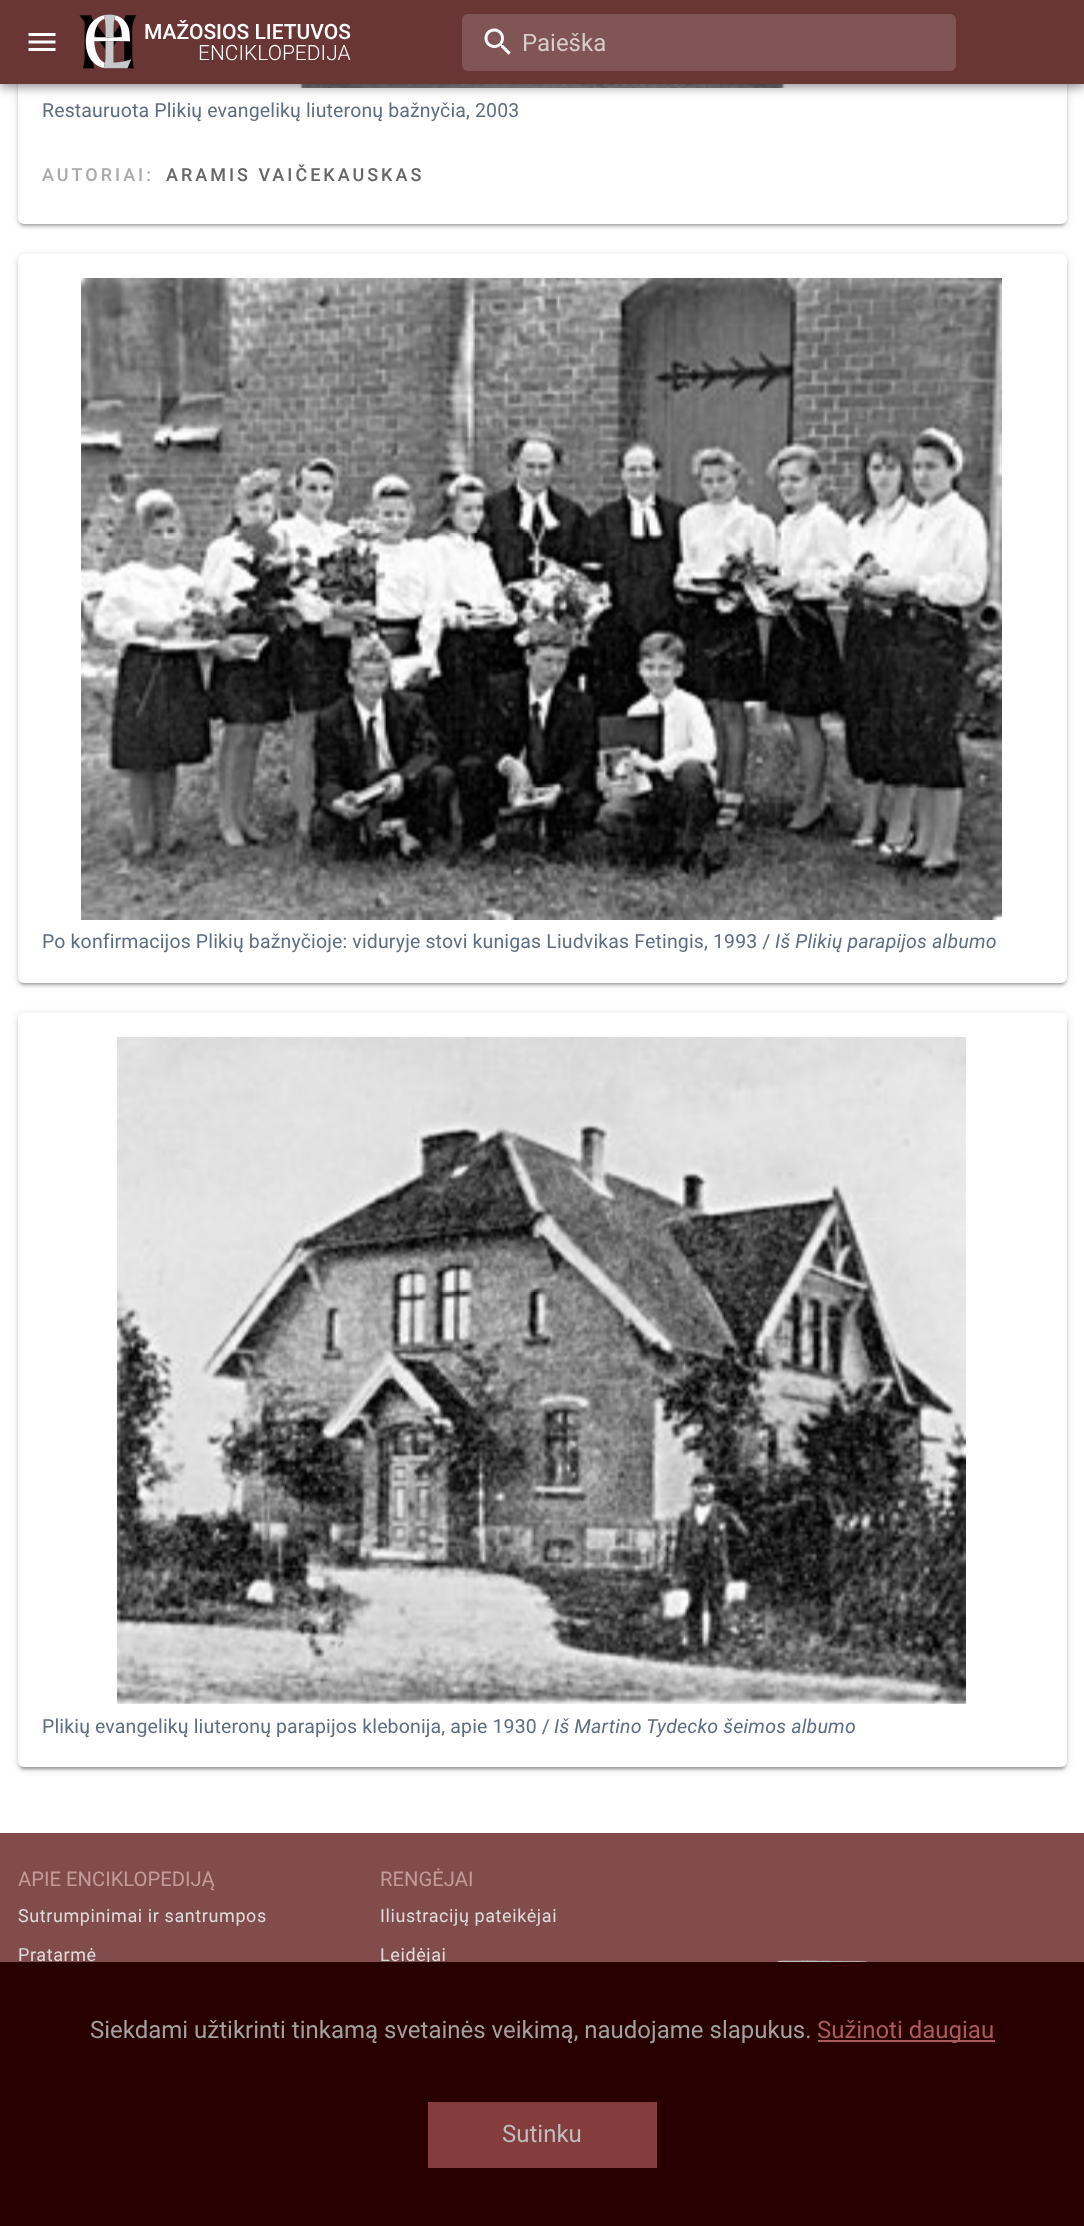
(async () => {
    const canvas = document.querySelector("canvas");
    canvas.width = 1084;
    canvas.height = 2226;
    const context = canvas.getContext("2d");
    context.miterLimit = 4;
    context.fontKerning = "normal";
    function write(s, x, y, font, color) {
        context.font = font;
        context.fillStyle = color;
        context.fillText(s, x, y);
    }
    function block(x, y, w, h, color) {
        context.fillStyle = color;
        context.fillRect(x, y, w, h);
    }
    function card(x, y, w, h, r, color) {
        context.fillStyle = color;
        context.beginPath();
        context.roundRect(x, y, w, h, r);
        context.fill();
    }
    async function photo(src, x, y, w, h) {
        const img = new Image();
        img.src = src;
        await img.decode();
        context.drawImage(img, x, y, w, h);
    }

    block(0, 0, 1084, 2226, "rgb(255, 255, 255)");
    context.fillStyle = "rgba(0, 0, 0, 0.12)";
    context.filter = "blur(4px)";
    context.beginPath();
    context.roundRect(18, -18, 1049, 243, 6);
    context.fill();
    context.filter = "none";
    context.fillStyle = "rgba(0, 0, 0, 0.14)";
    context.filter = "blur(1.5px)";
    context.beginPath();
    context.roundRect(18, -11, 1049, 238, 6);
    context.fill();
    context.filter = "none";
    context.fillStyle = "rgba(0, 0, 0, 0.2)";
    context.filter = "blur(1px)";
    context.beginPath();
    context.roundRect(21, -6, 1043, 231, 3);
    context.fill();
    context.filter = "none";
    card(18, -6, 1049, 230, 6, "rgb(255, 255, 255)");
    await photo("media/4.png", 300, 84, 485, 4);
    context.fillStyle = "rgba(0, 0, 0, 0.12)";
    context.filter = "blur(7.5px)";
    context.beginPath();
    context.rect(0, 2, 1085, 84);
    context.fill();
    context.filter = "none";
    context.fillStyle = "rgba(0, 0, 0, 0.14)";
    context.filter = "blur(4px)";
    context.beginPath();
    context.rect(0, 6, 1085, 84);
    context.fill();
    context.filter = "none";
    context.fillStyle = "rgba(0, 0, 0, 0.2)";
    context.filter = "blur(3px)";
    context.beginPath();
    context.rect(2, 5, 1081, 81);
    context.fill();
    context.filter = "none";
    block(0, 0, 1084, 84, "rgb(105, 53, 53)");
    await photo("media/1.png", 28, 33, 28, 18);
    await photo("media/2.png", 79, 14, 58, 55);
    write("MAŽOSIOS LIETUVOS", 144, 39, "500 21px Roboto", "rgb(255, 255, 255)");
    write("ENCIKLOPEDIJA", 198, 60, "300 21px Roboto", "rgb(255, 255, 255)");
    card(462, 14, 494, 57, 6, "rgb(129, 85, 85)");
    await photo("media/3.png", 484, 28, 27, 27);
    write("Paieška", 522, 51, "24px Roboto", "rgb(217, 204, 204)");
    context.letterSpacing = "0.15px";
    write("Restauruota Plikių evangelikų liuteronų bažnyčia, 2003", 42, 117, "19.5px Roboto", "rgb(95, 109, 128)");
    context.letterSpacing = "3px";
    write("AUTORIAI:", 42, 181, "500 18px Roboto", "rgb(170, 170, 170)");
    write("ARAMIS VAIČEKAUSKAS", 166, 181, "500 18px Roboto", "rgb(102, 102, 102)");
    context.fillStyle = "rgba(0, 0, 0, 0.12)";
    context.filter = "blur(4px)";
    context.beginPath();
    context.roundRect(18, 255, 1049, 729, 6);
    context.fill();
    context.filter = "none";
    context.fillStyle = "rgba(0, 0, 0, 0.14)";
    context.filter = "blur(1.5px)";
    context.beginPath();
    context.roundRect(18, 257, 1049, 729, 6);
    context.fill();
    context.filter = "none";
    context.fillStyle = "rgba(0, 0, 0, 0.2)";
    context.filter = "blur(1px)";
    context.beginPath();
    context.roundRect(21, 261, 1043, 723, 3);
    context.fill();
    context.filter = "none";
    card(18, 254, 1049, 729, 6, "rgb(255, 255, 255)");
    await photo("media/5.png", 81, 278, 921, 642);
    context.letterSpacing = "0.15px";
    write("Po konfirmacijos Plikių bažnyčioje: viduryje stovi kunigas Liudvikas Fetingis, 1993 /", 42, 948, "19.5px Roboto", "rgb(95, 109, 128)");
    write("Iš Plikių parapijos albumo", 775, 948, "italic 19.5px Roboto", "rgb(95, 109, 128)");
    context.fillStyle = "rgba(0, 0, 0, 0.12)";
    context.filter = "blur(4px)";
    context.beginPath();
    context.roundRect(18, 1014, 1049, 755, 6);
    context.fill();
    context.filter = "none";
    context.fillStyle = "rgba(0, 0, 0, 0.14)";
    context.filter = "blur(1.5px)";
    context.beginPath();
    context.roundRect(18, 1016, 1049, 754, 6);
    context.fill();
    context.filter = "none";
    context.fillStyle = "rgba(0, 0, 0, 0.2)";
    context.filter = "blur(1px)";
    context.beginPath();
    context.roundRect(21, 1020, 1043, 749, 3);
    context.fill();
    context.filter = "none";
    card(18, 1013, 1049, 754, 6, "rgb(255, 255, 255)");
    await photo("media/6.png", 117, 1037, 849, 667);
    write("Plikių evangelikų liuteronų parapijos klebonija, apie 1930 /", 42, 1733, "19.5px Roboto", "rgb(95, 109, 128)");
    write("Iš Martino Tydecko šeimos albumo", 554, 1733, "italic 19.5px Roboto", "rgb(95, 109, 128)");
    block(0, 1833, 1084, 129, "rgb(131, 76, 76)");
    context.letterSpacing = "0px";
    write("APIE ENCIKLOPEDIJĄ", 18, 1886, "20.25px Roboto", "rgb(196, 154, 154)");
    context.letterSpacing = "0.6px";
    write("Sutrumpinimai ir santrumpos", 18, 1922, "18px Roboto", "rgb(221, 221, 221)");
    write("Pratarmė", 18, 1961, "18px Roboto", "rgb(221, 221, 221)");
    context.letterSpacing = "0px";
    write("RENGĖJAI", 380, 1886, "20.25px Roboto", "rgb(196, 154, 154)");
    context.letterSpacing = "0.6px";
    write("Iliustracijų pateikėjai", 380, 1922, "18px Roboto", "rgb(221, 221, 221)");
    write("Leidėjai", 380, 1961, "18px Roboto", "rgb(221, 221, 221)");
    await photo("media/7.png", 776, 1960, 91, 2);
    block(0, 1962, 1084, 264, "rgb(40, 0, 0)");
    context.letterSpacing = "0px";
    write("Siekdami užtikrinti tinkamą svetainės veikimą, naudojame slapukus.", 90, 2038, "24px Roboto", "rgb(163, 160, 160)");
    block(818, 2040, 177, 2, "rgb(171, 91, 91)");
    write("Sužinoti daugiau", 817, 2038, "24px Roboto", "rgb(171, 91, 91)");
    block(428, 2102, 229, 66, "rgb(133, 60, 60)");
    write("Sutinku", 502, 2142, "24px Roboto", "rgb(190, 190, 190)");
})();
